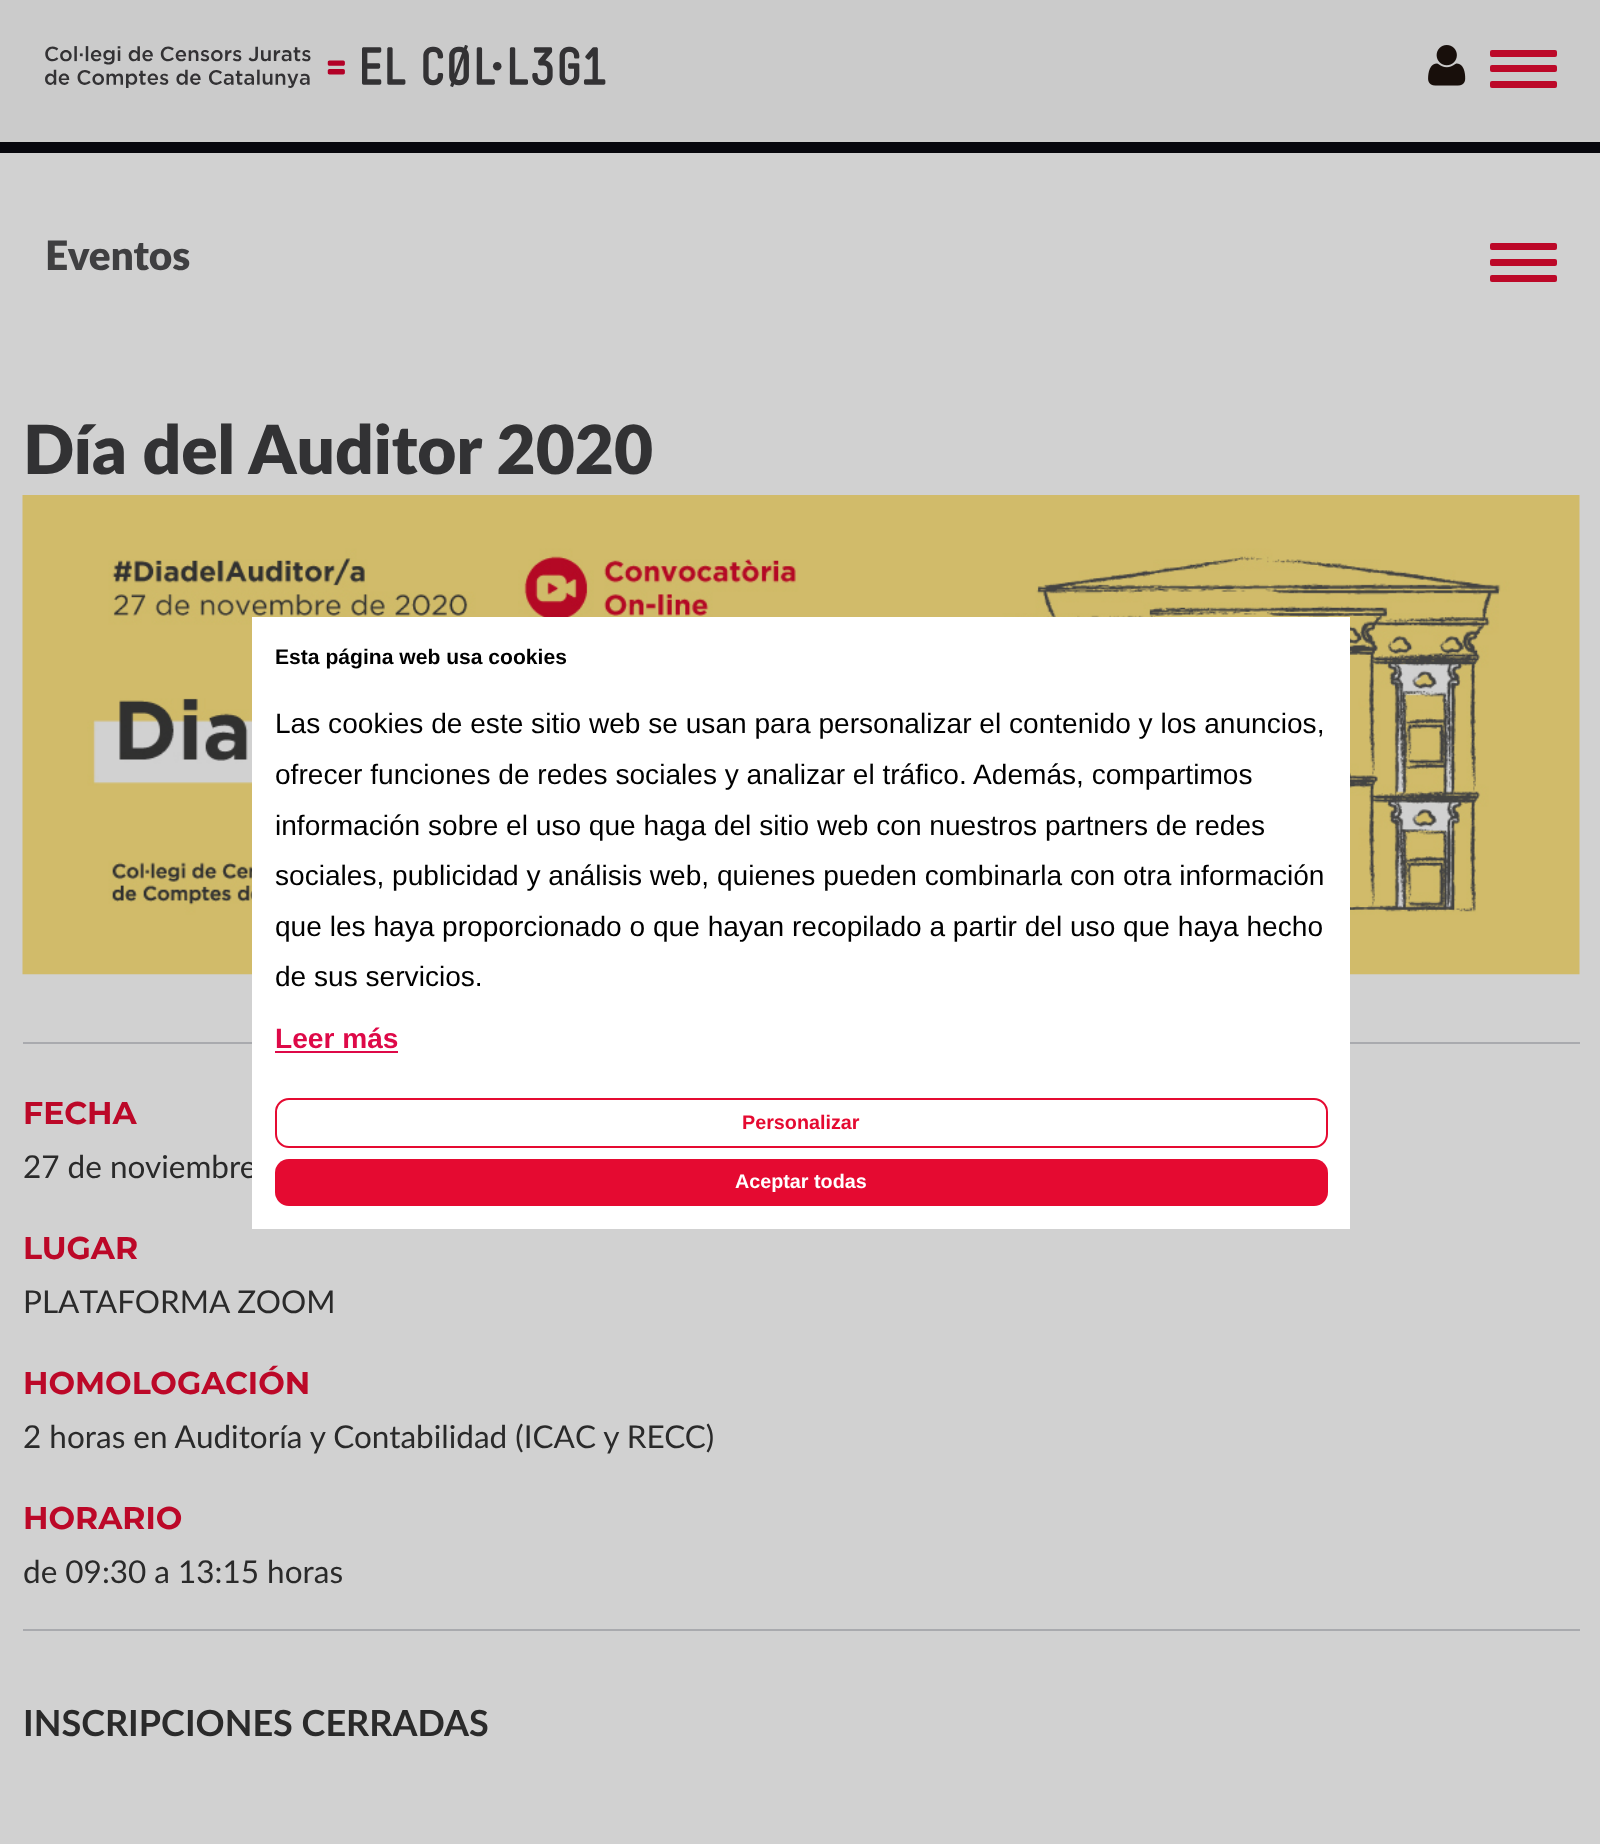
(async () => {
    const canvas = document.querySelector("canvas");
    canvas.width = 1600;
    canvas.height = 1844;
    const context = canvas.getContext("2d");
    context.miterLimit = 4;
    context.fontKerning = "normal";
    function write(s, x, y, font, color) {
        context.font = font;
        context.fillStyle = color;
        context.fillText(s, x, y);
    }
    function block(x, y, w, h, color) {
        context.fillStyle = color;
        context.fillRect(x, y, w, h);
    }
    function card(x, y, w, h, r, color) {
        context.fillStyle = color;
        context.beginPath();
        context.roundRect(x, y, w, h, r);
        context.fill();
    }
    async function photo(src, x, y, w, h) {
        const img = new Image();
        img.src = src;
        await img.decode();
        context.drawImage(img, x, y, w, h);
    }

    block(0, 0, 1600, 1844, "rgb(203, 203, 203)");
    await photo("media/1.png", 45, 45, 561, 43);
    await photo("media/2.png", 1428, 45, 38, 41);
    card(1490, 50, 67, 7, 2, "rgb(188, 8, 40)");
    card(1490, 65, 67, 7, 2, "rgb(188, 8, 40)");
    card(1490, 81, 67, 7, 2, "rgb(188, 8, 40)");
    block(0, 153, 1600, 1691, "rgb(209, 209, 209)");
    block(0, 142, 1600, 11, "rgb(7, 7, 13)");
    write("Eventos", 45, 270, "900 40.5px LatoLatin", "rgb(63, 63, 65)");
    card(1490, 243, 67, 7, 2, "rgb(188, 8, 40)");
    card(1490, 259, 67, 7, 2, "rgb(188, 8, 40)");
    card(1490, 275, 67, 7, 2, "rgb(188, 8, 40)");
    write("Día del Auditor 2020", 23, 474, "900 67.5px LatoLatin", "rgb(50, 50, 52)");
    await photo("media/3.png", 22, 495, 1558, 480);
    block(23, 1042, 1557, 2, "rgb(169, 170, 174)");
    block(23, 1629, 1557, 2, "rgb(169, 170, 174)");
    write("FECHA", 23, 1124, "bold 31.5px Montserrat", "rgb(188, 8, 40)");
    write("27 de noviembre", 23, 1178, "31.5px LatoLatin", "rgb(42, 42, 42)");
    write("LUGAR", 23, 1259, "bold 31.5px Montserrat", "rgb(188, 8, 40)");
    write("PLATAFORMA ZOOM", 23, 1313, "31.5px LatoLatin", "rgb(42, 42, 42)");
    write("HOMOLOGACIÓN", 23, 1394, "bold 31.5px Montserrat", "rgb(188, 8, 40)");
    write("2 horas en Auditoría y Contabilidad (ICAC y RECC)", 23, 1448, "31.5px LatoLatin", "rgb(42, 42, 42)");
    write("HORARIO", 23, 1529, "bold 31.5px Montserrat", "rgb(188, 8, 40)");
    write("de 09:30 a 13:15 horas", 23, 1583, "31.5px LatoLatin", "rgb(42, 42, 42)");
    write("INSCRIPCIONES CERRADAS", 23, 1736, "bold 36px LatoLatin", "rgb(42, 42, 42)");
    block(252, 617, 1098, 612, "rgb(255, 255, 255)");
    write("Esta página web usa cookies", 275, 664, "bold 21.1px Liberation Sans", "rgb(0, 0, 0)");
    write("Las cookies de este sitio web se usan para personalizar el contenido y los anuncios,", 275, 733, "28.1px Liberation Sans", "rgb(0, 0, 0)");
    write("ofrecer funciones de redes sociales y analizar el tráfico. Además, compartimos", 275, 784, "28.1px Liberation Sans", "rgb(0, 0, 0)");
    write("información sobre el uso que haga del sitio web con nuestros partners de redes", 275, 835, "28.1px Liberation Sans", "rgb(0, 0, 0)");
    write("sociales, publicidad y análisis web, quienes pueden combinarla con otra información", 275, 885, "28.1px Liberation Sans", "rgb(0, 0, 0)");
    write("que les haya proporcionado o que hayan recopilado a partir del uso que haya hecho", 275, 936, "28.1px Liberation Sans", "rgb(0, 0, 0)");
    write("de sus servicios.", 275, 986, "28.1px Liberation Sans", "rgb(0, 0, 0)");
    write("Leer más", 275, 1048, "bold 28.1px Liberation Sans", "rgb(222, 9, 72)");
    block(275, 1051, 123, 2, "rgb(222, 9, 72)");
    context.beginPath();
    context.roundRect(276, 1099, 1051, 48, 13);
    context.strokeStyle = "rgb(229, 10, 49)";
    context.lineWidth = 2;
    context.stroke();
    write("Personalizar", 742, 1129, "bold 19.75px Liberation Sans", "rgb(229, 10, 49)");
    card(275, 1159, 1053, 47, 14, "rgb(229, 10, 49)");
    write("Aceptar todas", 735, 1188, "bold 19.75px Liberation Sans", "rgb(255, 255, 255)");
})();
